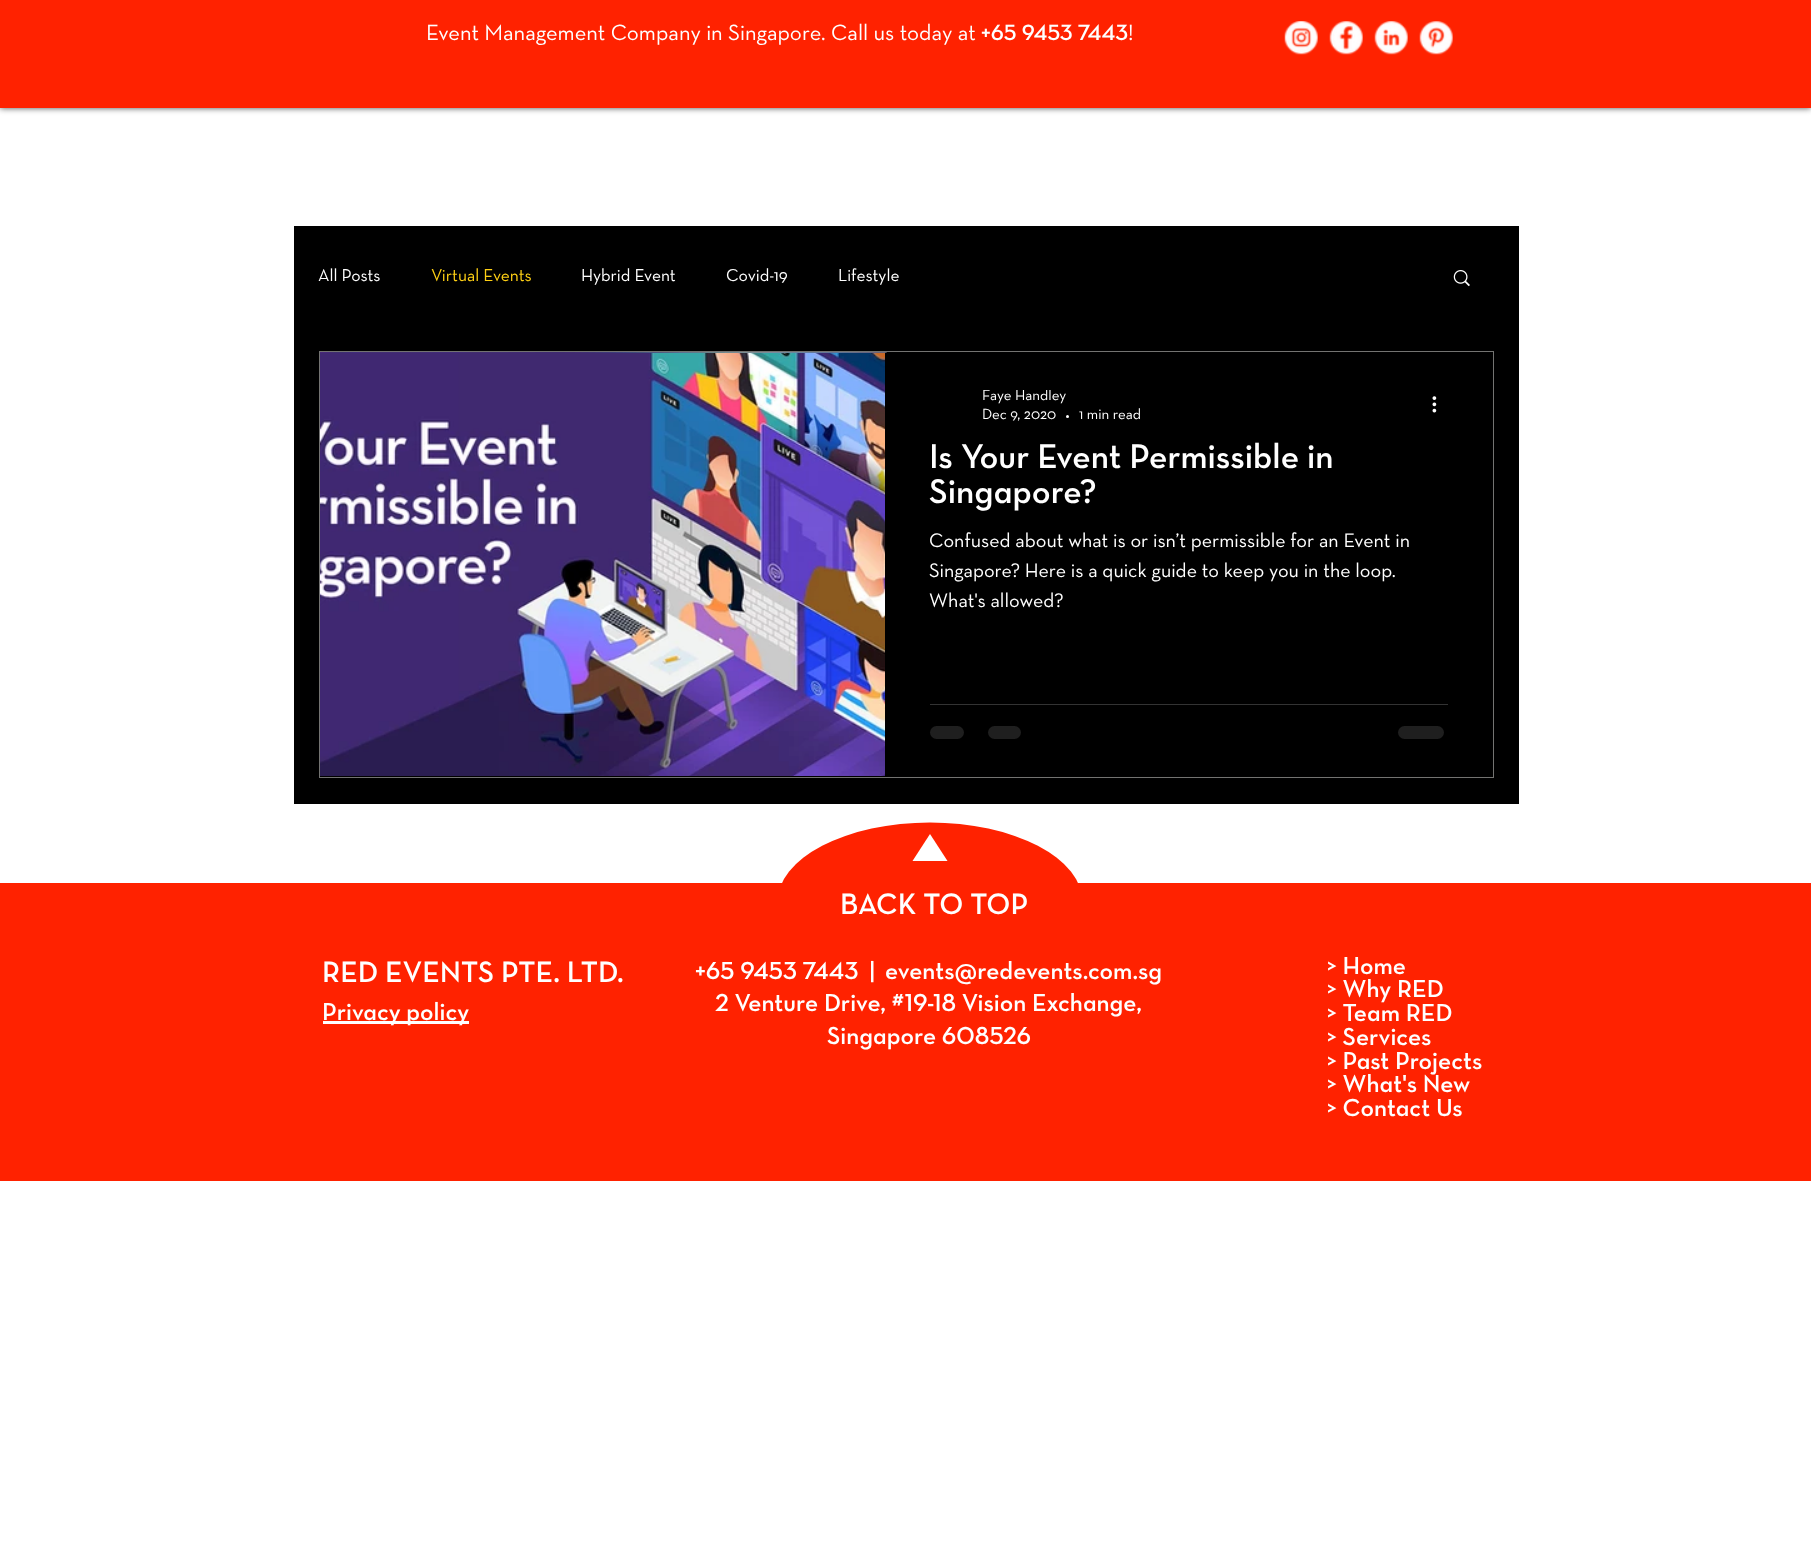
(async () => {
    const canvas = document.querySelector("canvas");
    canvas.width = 1811;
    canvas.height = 1541;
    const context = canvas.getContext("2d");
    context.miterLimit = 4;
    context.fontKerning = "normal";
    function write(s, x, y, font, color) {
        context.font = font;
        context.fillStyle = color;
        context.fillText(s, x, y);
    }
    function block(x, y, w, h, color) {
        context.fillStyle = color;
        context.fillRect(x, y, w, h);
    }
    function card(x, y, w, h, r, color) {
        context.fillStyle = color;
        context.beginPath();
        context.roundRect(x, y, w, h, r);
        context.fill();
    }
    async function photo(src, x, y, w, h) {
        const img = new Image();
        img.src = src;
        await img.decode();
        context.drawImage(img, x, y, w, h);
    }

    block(0, 0, 1811, 1541, "rgb(255, 255, 255)");
    context.fillStyle = "rgba(0, 0, 0, 0.7)";
    context.filter = "blur(3px)";
    context.beginPath();
    context.rect(0, 0, 1811, 108);
    context.fill();
    context.filter = "none";
    block(0, 0, 1811, 108, "rgb(255, 34, 0)");
    write("Event Management Company in Singapore. Call us today at", 426, 40, "22.5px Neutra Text", "rgb(255, 255, 255)");
    write("+65 9453 7443", 981, 40, "500 22.5px Neutra Text", "rgb(255, 255, 255)");
    write("!", 1128, 40, "22.5px Neutra Text", "rgb(255, 255, 255)");
    await photo("media/1.png", 1284, 21, 34, 34);
    await photo("media/2.png", 1329, 21, 34, 34);
    await photo("media/3.png", 1374, 21, 34, 34);
    await photo("media/4.png", 1419, 21, 34, 34);
    block(294, 226, 1225, 578, "rgb(0, 0, 0)");
    write("All Posts", 318, 281, "17.5px Neutra Text", "rgb(255, 255, 255)");
    write("Virtual Events", 431, 281, "17.5px Neutra Text", "rgb(255, 208, 20)");
    write("Hybrid Event", 581, 281, "17.5px Neutra Text", "rgb(255, 255, 255)");
    write("Covid-19", 726, 281, "17.5px Neutra Text", "rgb(255, 255, 255)");
    write("Lifestyle", 838, 281, "17.5px Neutra Text", "rgb(255, 255, 255)");
    await photo("media/5.png", 1453, 270, 17, 17);
    context.strokeStyle = "rgb(115, 115, 113)";
    context.strokeRect(319.5, 351.5, 1174, 426);
    await photo("media/6.png", 320, 352, 567, 1);
    await photo("media/7.png", 320, 353, 565, 423);
    context.save();
    context.beginPath();
    context.rect(983, 390, 83, 14);
    context.clip();
    write("Faye Handley", 982, 400, "15px Neutra Text", "rgb(255, 255, 255)");
    context.restore();
    write("Dec 9, 2020", 982, 419, "15px Neutra Text", "rgb(255, 255, 255)");
    context.beginPath();
    context.arc(1067.5, 416.5, 1.5, 0, Math.PI * 2);
    context.fill();
    write("1 min read", 1079, 419, "15px Neutra Text", "rgb(255, 255, 255)");
    await photo("media/8.png", 1432, 396, 5, 17);
    write("Is Your Event Permissible in", 929, 468, "500 35px Neutra Text", "rgb(255, 255, 255)");
    write("Singapore?", 929, 503, "500 35px Neutra Text", "rgb(255, 255, 255)");
    write("Confused about what is or isn’t permissible for an Event in", 929, 547, "20px Neutra Text", "rgb(255, 255, 255)");
    write("Singapore? Here is a quick guide to keep you in the loop.", 929, 577, "20px Neutra Text", "rgb(255, 255, 255)");
    write("What's allowed?", 929, 607, "20px Neutra Text", "rgb(255, 255, 255)");
    block(930, 704, 518, 1, "rgb(51, 51, 51)");
    card(930, 726, 34, 13, 6.5, "rgb(31, 31, 31)");
    card(988, 726, 33, 13, 6.5, "rgb(31, 31, 31)");
    card(1398, 726, 46, 13, 6.5, "rgb(31, 31, 31)");
    context.fillStyle = "rgb(255, 34, 0)";
    context.beginPath();
    context.ellipse(930, 902, 152.5, 79.5, 0, 0, Math.PI * 2);
    context.fill();
    context.fillStyle = "rgb(255, 255, 255)";
    context.beginPath();
    context.moveTo(930, 834);
    context.lineTo(947.5, 861);
    context.lineTo(912.5, 861);
    context.closePath();
    context.fill();
    block(0, 883, 1811, 298, "rgb(255, 34, 0)");
    write("BACK TO TOP", 840, 914, "500 30px Neutra Text", "rgb(255, 255, 255)");
    write("RED EVENTS PTE. LTD.", 322, 982, "500 30px Neutra Text", "rgb(255, 255, 255)");
    block(323, 1021, 146, 3, "rgb(255, 255, 255)");
    write("Privacy policy", 322, 1020, "500 25px Neutra Text", "rgb(255, 255, 255)");
    write("+65 9453 7443", 695, 979, "500 25px Neutra Text", "rgb(255, 255, 255)");
    write("|", 869, 979, "500 25px Neutra Text", "rgb(255, 255, 255)");
    write("events@redevents.com.sg", 885, 979, "500 25px Neutra Text", "rgb(255, 255, 255)");
    write("2 Venture Drive, #19-18 Vision Exchange,", 715, 1011, "500 25px Neutra Text", "rgb(255, 255, 255)");
    write("Singapore 608526", 827, 1044, "500 25px Neutra Text", "rgb(255, 255, 255)");
    write("> Home", 1327, 974, "500 25px Neutra Text", "rgb(255, 255, 255)");
    write("> Why RED", 1327, 997, "500 25px Neutra Text", "rgb(255, 255, 255)");
    write("> Team RED", 1327, 1021, "500 25px Neutra Text", "rgb(255, 255, 255)");
    write("> Services", 1327, 1045, "500 25px Neutra Text", "rgb(255, 255, 255)");
    write("> Past Projects", 1327, 1069, "500 25px Neutra Text", "rgb(255, 255, 255)");
    write("> What's New", 1327, 1092, "500 25px Neutra Text", "rgb(255, 255, 255)");
    write("> Contact Us", 1327, 1116, "500 25px Neutra Text", "rgb(255, 255, 255)");
})();
